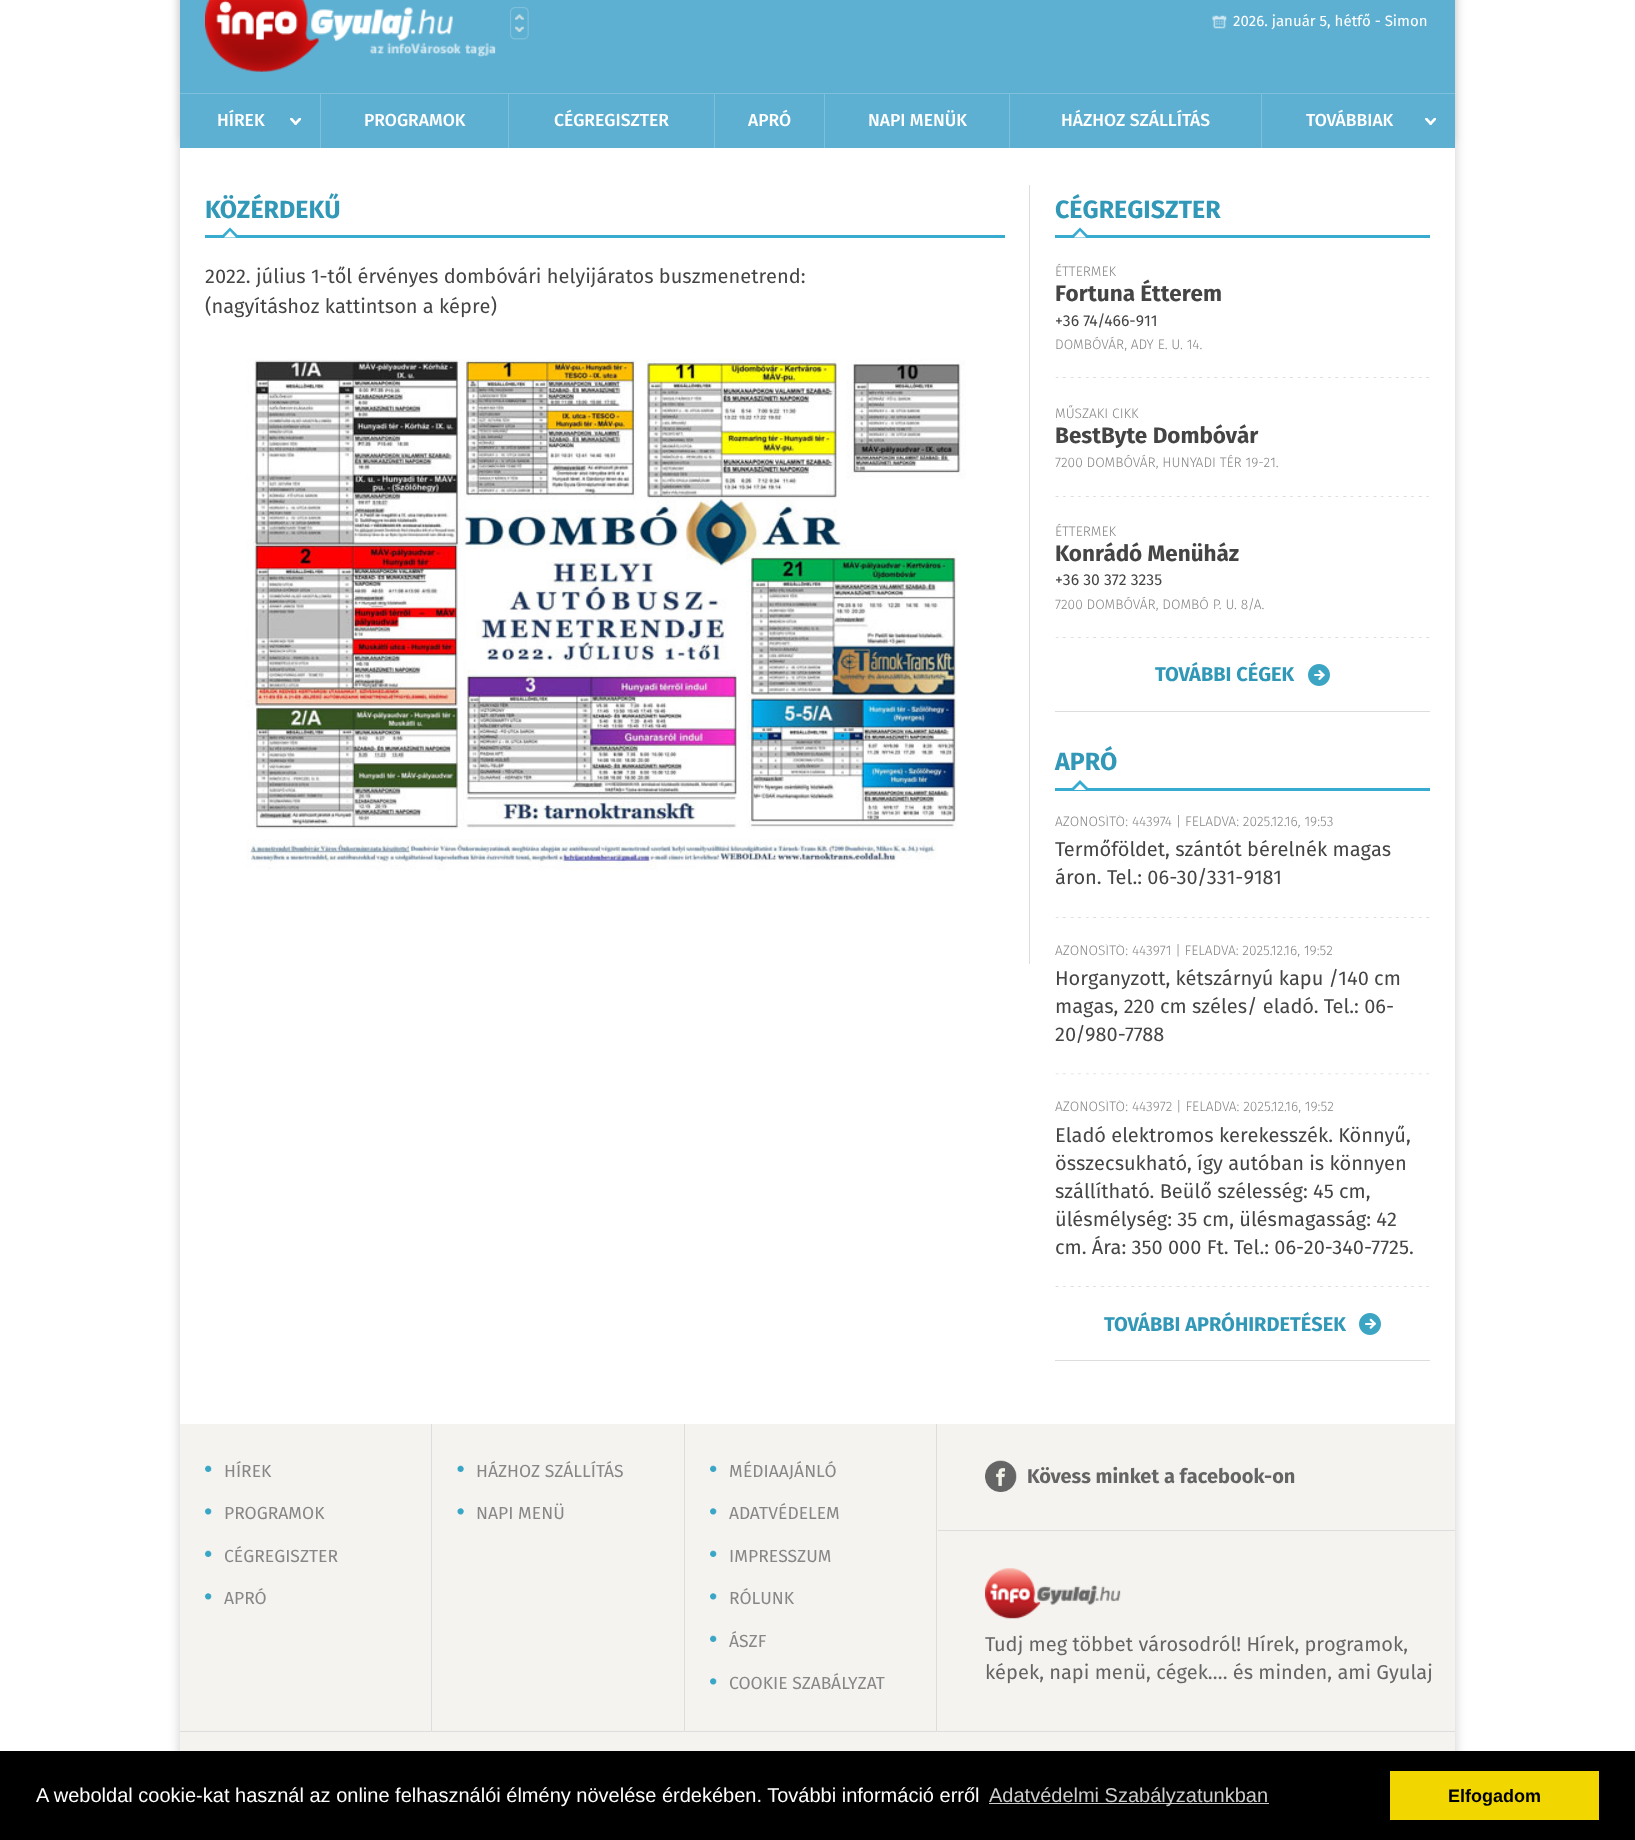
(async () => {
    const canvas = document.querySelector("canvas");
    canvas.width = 1635;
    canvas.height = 1840;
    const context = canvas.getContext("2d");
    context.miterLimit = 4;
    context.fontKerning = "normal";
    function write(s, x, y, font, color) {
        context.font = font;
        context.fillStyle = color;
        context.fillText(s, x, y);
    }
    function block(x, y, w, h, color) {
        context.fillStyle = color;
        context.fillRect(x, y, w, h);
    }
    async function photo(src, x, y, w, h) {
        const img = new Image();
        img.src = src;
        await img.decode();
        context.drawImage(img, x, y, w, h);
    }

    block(0, 0, 1635, 1840, "rgb(255, 255, 255)");
    context.save();
    context.beginPath();
    context.moveTo(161, 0);
    context.lineTo(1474, 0);
    context.lineTo(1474, 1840);
    context.lineTo(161, 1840);
    context.closePath();
    context.moveTo(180, -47);
    context.lineTo(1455, -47);
    context.lineTo(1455, 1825);
    context.lineTo(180, 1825);
    context.closePath();
    context.clip("evenodd");
    context.fillStyle = "rgba(0, 0, 0, 0.2)";
    context.filter = "blur(6px)";
    context.beginPath();
    context.rect(180, -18, 1275, 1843);
    context.fill();
    context.filter = "none";
    context.restore();
    context.fillStyle = "rgba(0, 0, 0, 0.09)";
    context.filter = "blur(4.5px)";
    context.beginPath();
    context.rect(180, -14, 1275, 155);
    context.fill();
    context.filter = "none";
    block(180, 0, 1275, 148, "rgb(94, 176, 210)");
    await photo("media/1.png", 205, 0, 291, 72);
    await photo("media/2.png", 510, 7, 19, 33);
    await photo("media/3.png", 1212, 15, 15, 14);
    write("2026. január 5, hétfő - Simon", 1233, 26, "15px Fira Sans", "rgb(255, 255, 255)");
    block(180, 93, 1275, 1, "rgb(126, 192, 219)");
    block(320, 94, 1, 54, "rgb(126, 192, 219)");
    await photo("media/4.png", 290, 118, 11, 7);
    write("HÍREK", 217, 126, "500 17.5px Fira Sans", "rgb(255, 255, 255)");
    block(508, 94, 1, 54, "rgb(126, 192, 219)");
    write("PROGRAMOK", 364, 126, "500 17.5px Fira Sans", "rgb(255, 255, 255)");
    block(714, 94, 1, 54, "rgb(126, 192, 219)");
    write("CÉGREGISZTER", 554, 126, "500 17.5px Fira Sans", "rgb(255, 255, 255)");
    block(824, 94, 1, 54, "rgb(126, 192, 219)");
    write("APRÓ", 748, 126, "500 17.5px Fira Sans", "rgb(255, 255, 255)");
    block(1009, 94, 1, 54, "rgb(126, 192, 219)");
    write("NAPI MENÜK", 868, 126, "500 17.5px Fira Sans", "rgb(255, 255, 255)");
    block(1261, 94, 1, 54, "rgb(126, 192, 219)");
    write("HÁZHOZ SZÁLLÍTÁS", 1061, 126, "500 17.5px Fira Sans", "rgb(255, 255, 255)");
    await photo("media/4.png", 1425, 118, 11, 7);
    write("TOVÁBBIAK", 1306, 126, "500 17.5px Fira Sans", "rgb(255, 255, 255)");
    block(1029, 185, 1, 779, "rgb(221, 221, 221)");
    block(205, 235, 800, 3, "rgb(56, 172, 208)");
    write("KÖZÉRDEKŰ", 205, 218, "bold 25px Fira Sans", "rgb(49, 152, 184)");
    context.fillStyle = "rgb(56, 172, 208)";
    context.beginPath();
    context.moveTo(240, 237.5);
    context.lineTo(220, 237.5);
    context.lineTo(230, 227.5);
    context.closePath();
    context.fill();
    context.fillStyle = "rgb(255, 255, 255)";
    context.beginPath();
    context.moveTo(236, 237.5);
    context.lineTo(224, 237.5);
    context.lineTo(230, 231);
    context.closePath();
    context.fill();
    write("2022. július 1-től érvényes dombóvári helyijáratos buszmenetrend:", 205, 283, "20px Fira Sans", "rgb(69, 69, 69)");
    write("(nagyításhoz kattintson a képre)", 205, 313, "20px Fira Sans", "rgb(69, 69, 69)");
    await photo("media/5.png", 246, 359, 720, 511);
    block(1055, 235, 375, 3, "rgb(56, 172, 208)");
    write("CÉGREGISZTER", 1055, 218, "bold 25px Fira Sans", "rgb(49, 152, 184)");
    context.fillStyle = "rgb(56, 172, 208)";
    context.beginPath();
    context.moveTo(1090, 237.5);
    context.lineTo(1070, 237.5);
    context.lineTo(1080, 227.5);
    context.closePath();
    context.fill();
    context.fillStyle = "rgb(255, 255, 255)";
    context.beginPath();
    context.moveTo(1086, 237.5);
    context.lineTo(1074, 237.5);
    context.lineTo(1080, 231);
    context.closePath();
    context.fill();
    await photo("media/6.png", 1055, 377, 375, 1);
    write("ÉTTERMEK", 1055, 276, "300 13.75px Fira Sans", "rgb(135, 135, 135)");
    write("Fortuna Étterem", 1055, 301, "bold 22.5px Fira Sans", "rgb(69, 69, 69)");
    write("+36 74/466-911", 1055, 326, "15.75px Fira Sans", "rgb(69, 69, 69)");
    write("DOMBÓVÁR, ADY E. U. 14.", 1055, 349, "300 13.75px Fira Sans", "rgb(135, 135, 135)");
    await photo("media/7.png", 1055, 496, 374, 1);
    write("MŰSZAKI CIKK", 1055, 418, "300 13.75px Fira Sans", "rgb(135, 135, 135)");
    write("BestByte Dombóvár", 1055, 443, "bold 22.5px Fira Sans", "rgb(69, 69, 69)");
    write("7200 DOMBÓVÁR, HUNYADI TÉR 19-21.", 1055, 467, "300 13.75px Fira Sans", "rgb(135, 135, 135)");
    await photo("media/6.png", 1055, 637, 375, 1);
    write("ÉTTERMEK", 1055, 536, "300 13.75px Fira Sans", "rgb(135, 135, 135)");
    write("Konrádó Menüház", 1055, 561, "bold 22.5px Fira Sans", "rgb(69, 69, 69)");
    write("+36 30 372 3235", 1055, 585, "15.75px Fira Sans", "rgb(69, 69, 69)");
    write("7200 DOMBÓVÁR, DOMBÓ P. U. 8/A.", 1055, 609, "300 13.75px Fira Sans", "rgb(135, 135, 135)");
    block(1055, 711, 375, 1, "rgb(221, 221, 221)");
    await photo("media/8.png", 1308, 664, 22, 22);
    write("TOVÁBBI CÉGEK", 1155, 681, "bold 20px Fira Sans", "rgb(49, 152, 184)");
    block(1055, 788, 375, 3, "rgb(56, 172, 208)");
    write("APRÓ", 1055, 770, "bold 25px Fira Sans", "rgb(49, 152, 184)");
    context.fillStyle = "rgb(56, 172, 208)";
    context.beginPath();
    context.moveTo(1090, 790);
    context.lineTo(1070, 790);
    context.lineTo(1080, 780);
    context.closePath();
    context.fill();
    context.fillStyle = "rgb(255, 255, 255)";
    context.beginPath();
    context.moveTo(1086, 790);
    context.lineTo(1074, 790);
    context.lineTo(1080, 784);
    context.closePath();
    context.fill();
    await photo("media/6.png", 1055, 917, 375, 1);
    context.save();
    context.beginPath();
    context.rect(1055, 815, 375, 104);
    context.clip();
    write("AZONOSÍTÓ: 443974 | FELADVA: 2025.12.16, 19:53", 1055, 826, "300 13.75px Fira Sans", "rgb(135, 135, 135)");
    context.restore();
    write("Termőföldet, szántót bérelnék magas", 1055, 856, "20px Fira Sans", "rgb(69, 69, 69)");
    write("áron. Tel.: 06-30/331-9181", 1055, 884, "20px Fira Sans", "rgb(69, 69, 69)");
    await photo("media/9.png", 1055, 1073, 374, 2);
    context.save();
    context.beginPath();
    context.rect(1055, 944, 375, 131);
    context.clip();
    write("AZONOSÍTÓ: 443971 | FELADVA: 2025.12.16, 19:52", 1055, 955, "300 13.75px Fira Sans", "rgb(135, 135, 135)");
    context.restore();
    write("Horganyzott, kétszárnyú kapu /140 cm", 1055, 985, "20px Fira Sans", "rgb(69, 69, 69)");
    write("magas, 220 cm széles/ eladó. Tel.: 06-", 1055, 1013, "20px Fira Sans", "rgb(69, 69, 69)");
    write("20/980-7788", 1055, 1041, "20px Fira Sans", "rgb(69, 69, 69)");
    await photo("media/7.png", 1055, 1286, 374, 1);
    context.save();
    context.beginPath();
    context.rect(1055, 1100, 375, 188);
    context.clip();
    write("AZONOSÍTÓ: 443972 | FELADVA: 2025.12.16, 19:52", 1055, 1111, "300 13.75px Fira Sans", "rgb(135, 135, 135)");
    context.restore();
    write("Eladó elektromos kerekesszék. Könnyű,", 1055, 1142, "20px Fira Sans", "rgb(69, 69, 69)");
    write("összecsukható, így autóban is könnyen", 1055, 1170, "20px Fira Sans", "rgb(69, 69, 69)");
    write("szállítható. Beülő szélesség: 45 cm,", 1055, 1198, "20px Fira Sans", "rgb(69, 69, 69)");
    write("ülésmélység: 35 cm, ülésmagasság: 42", 1055, 1226, "20px Fira Sans", "rgb(69, 69, 69)");
    write("cm. Ára: 350 000 Ft. Tel.: 06-20-340-7725.", 1055, 1254, "20px Fira Sans", "rgb(69, 69, 69)");
    block(1055, 1360, 375, 1, "rgb(221, 221, 221)");
    await photo("media/10.png", 1359, 1313, 22, 22);
    write("TOVÁBBI APRÓHIRDETÉSEK", 1104, 1331, "bold 20px Fira Sans", "rgb(49, 152, 184)");
    block(180, 1424, 1275, 327, "rgb(245, 243, 240)");
    block(431, 1424, 1, 307, "rgb(221, 221, 221)");
    await photo("media/11.png", 205, 1465, 7, 7);
    write("HÍREK", 224, 1477, "17.5px Fira Sans", "rgb(135, 135, 135)");
    await photo("media/12.png", 205, 1508, 7, 7);
    write("PROGRAMOK", 224, 1519, "17.5px Fira Sans", "rgb(135, 135, 135)");
    await photo("media/11.png", 205, 1550, 7, 7);
    write("CÉGREGISZTER", 224, 1562, "17.5px Fira Sans", "rgb(135, 135, 135)");
    await photo("media/12.png", 205, 1593, 7, 7);
    write("APRÓ", 224, 1604, "17.5px Fira Sans", "rgb(135, 135, 135)");
    block(684, 1424, 1, 307, "rgb(221, 221, 221)");
    await photo("media/13.png", 457, 1465, 7, 7);
    write("HÁZHOZ SZÁLLÍTÁS", 476, 1477, "17.5px Fira Sans", "rgb(135, 135, 135)");
    await photo("media/14.png", 457, 1508, 7, 7);
    write("NAPI MENÜ", 476, 1519, "17.5px Fira Sans", "rgb(135, 135, 135)");
    block(936, 1424, 1, 307, "rgb(221, 221, 221)");
    await photo("media/15.png", 710, 1465, 7, 7);
    write("MÉDIAAJÁNLÓ", 729, 1477, "17.5px Fira Sans", "rgb(135, 135, 135)");
    await photo("media/16.png", 710, 1508, 7, 7);
    write("ADATVÉDELEM", 729, 1519, "17.5px Fira Sans", "rgb(135, 135, 135)");
    await photo("media/15.png", 710, 1550, 7, 7);
    write("IMPRESSZUM", 729, 1562, "17.5px Fira Sans", "rgb(135, 135, 135)");
    await photo("media/16.png", 710, 1593, 7, 7);
    write("RÓLUNK", 729, 1604, "17.5px Fira Sans", "rgb(135, 135, 135)");
    await photo("media/15.png", 710, 1635, 7, 7);
    write("ÁSZF", 729, 1647, "17.5px Fira Sans", "rgb(135, 135, 135)");
    await photo("media/16.png", 710, 1678, 7, 7);
    write("COOKIE SZABÁLYZAT", 729, 1689, "17.5px Fira Sans", "rgb(135, 135, 135)");
    block(938, 1530, 517, 1, "rgb(221, 221, 221)");
    await photo("media/17.png", 985, 1460, 32, 32);
    write("Kövess minket a facebook-on", 1027, 1483, "bold 20px Fira Sans", "rgb(101, 101, 101)");
    await photo("media/18.png", 985, 1568, 136, 51);
    write("Tudj meg többet városodról! Hírek, programok,", 985, 1651, "20px Fira Sans", "rgb(101, 101, 101)");
    write("képek, napi menü, cégek…. és minden, ami Gyulaj", 985, 1679, "20px Fira Sans", "rgb(101, 101, 101)");
    block(180, 1731, 1275, 1, "rgb(221, 221, 221)");
    block(0, 1751, 1635, 89, "rgb(0, 0, 0)");
    write("A weboldal cookie-kat használ az online felhasználói élmény növelése érdekében. További információ erről", 36, 1802, "20px Liberation Sans", "rgb(255, 255, 255)");
    block(989, 1803, 280, 1, "rgb(204, 204, 204)");
    write("Adatvédelmi Szabályzatunkban", 989, 1802, "20px Liberation Sans", "rgb(204, 204, 204)");
    block(1390, 1771, 209, 49, "rgb(241, 214, 0)");
    write("Elfogadom", 1448, 1802, "bold 18px Liberation Sans", "rgb(0, 0, 0)");
})();
